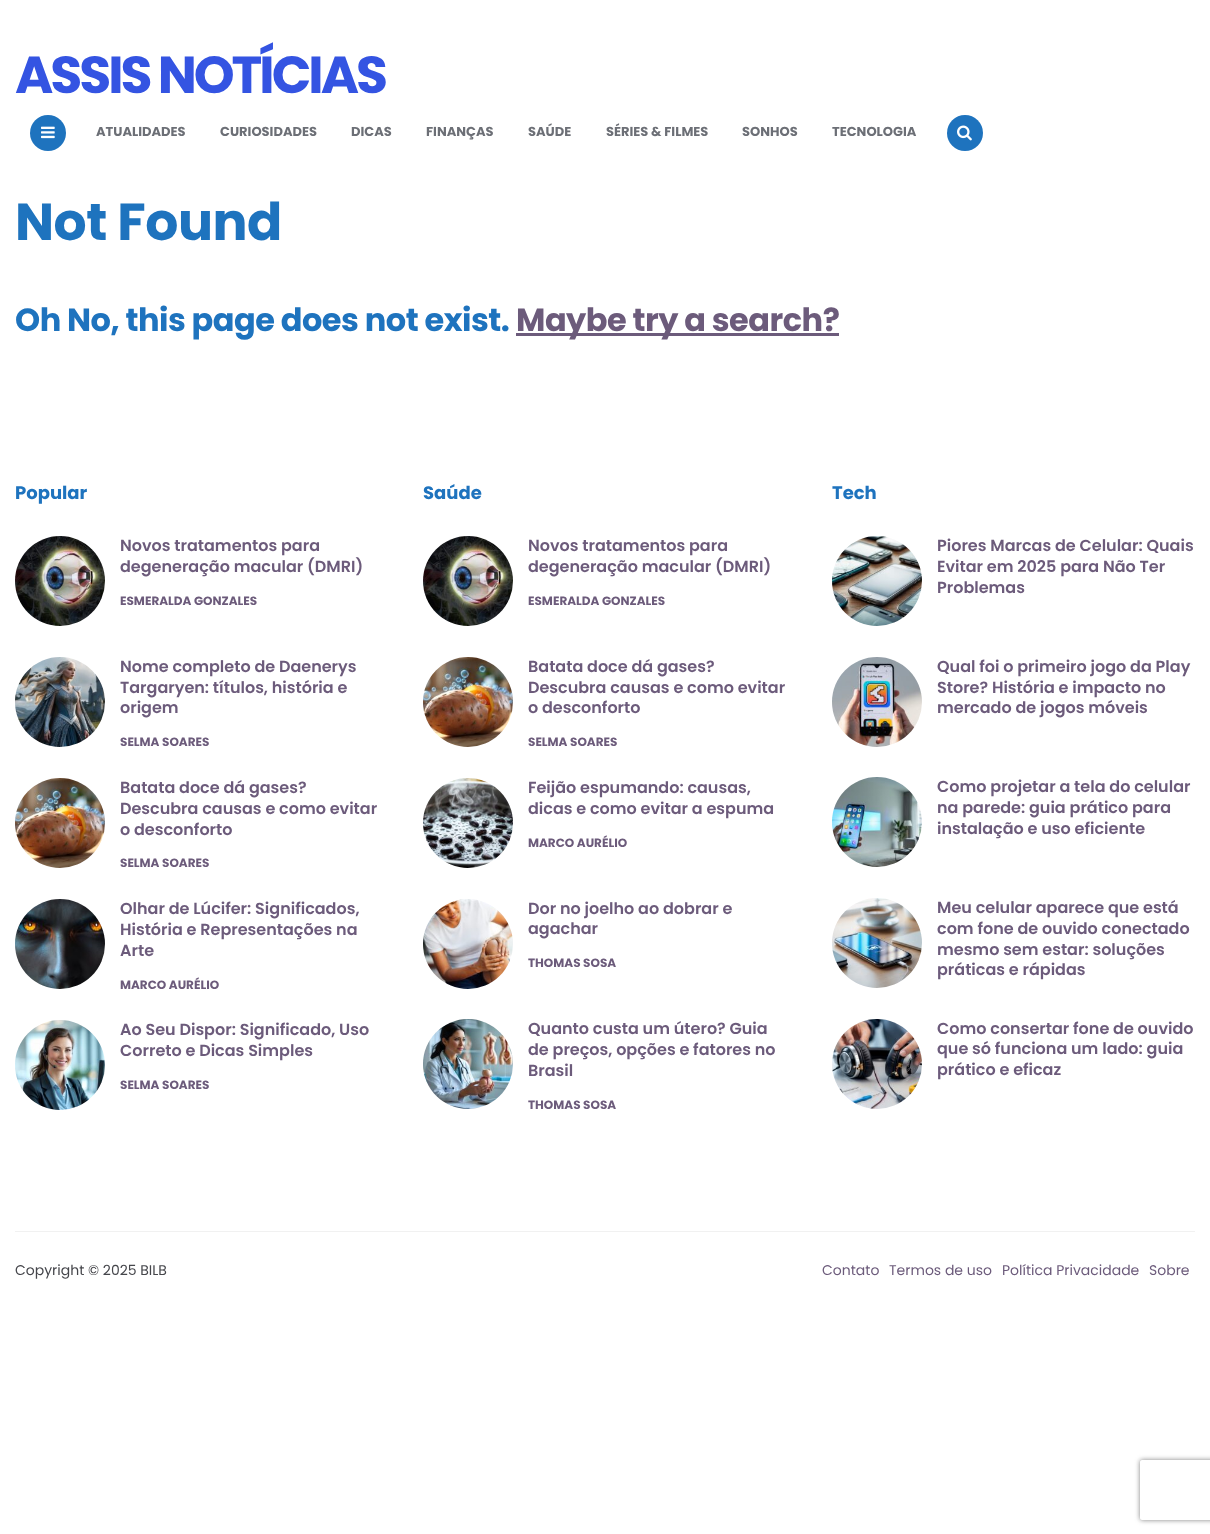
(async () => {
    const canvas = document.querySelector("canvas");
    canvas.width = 1210;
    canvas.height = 1534;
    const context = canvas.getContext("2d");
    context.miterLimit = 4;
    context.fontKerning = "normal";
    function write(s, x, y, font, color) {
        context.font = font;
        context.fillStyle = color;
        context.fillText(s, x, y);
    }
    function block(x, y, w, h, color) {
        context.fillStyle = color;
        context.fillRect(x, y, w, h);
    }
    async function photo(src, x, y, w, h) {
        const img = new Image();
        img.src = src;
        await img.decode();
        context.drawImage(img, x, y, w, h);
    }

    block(0, 0, 1210, 1534, "rgb(255, 255, 255)");
    context.letterSpacing = "-3px";
    write("ASSIS NOTÍCIAS", 15, 93, "bold 52px Poppins", "rgb(52, 84, 226)");
    context.fillStyle = "rgb(30, 115, 190)";
    context.beginPath();
    context.arc(48, 133, 18, 0, Math.PI * 2);
    context.fill();
    await photo("media/1.png", 41, 126, 14, 13);
    context.letterSpacing = "0px";
    write("ATUALIDADES", 96, 136, "bold 13px Poppins", "rgb(108, 111, 118)");
    write("CURIOSIDADES", 220, 136, "bold 13px Poppins", "rgb(108, 111, 118)");
    write("DICAS", 351, 136, "bold 13px Poppins", "rgb(108, 111, 118)");
    write("FINANÇAS", 426, 136, "bold 13px Poppins", "rgb(108, 111, 118)");
    write("SAÚDE", 528, 136, "bold 13px Poppins", "rgb(108, 111, 118)");
    write("SÉRIES & FILMES", 606, 136, "bold 13px Poppins", "rgb(108, 111, 118)");
    write("SONHOS", 742, 136, "bold 13px Poppins", "rgb(108, 111, 118)");
    write("TECNOLOGIA", 832, 136, "bold 13px Poppins", "rgb(108, 111, 118)");
    context.fillStyle = "rgb(30, 115, 190)";
    context.beginPath();
    context.arc(965, 133, 18, 0, Math.PI * 2);
    context.fill();
    await photo("media/2.png", 957, 125, 15, 16);
    context.letterSpacing = "-0.5px";
    write("Not Found", 15, 240, "bold 52px Poppins", "rgb(30, 115, 190)");
    write("Oh No, this page does not exist.", 15, 331, "bold 32px Poppins", "rgb(30, 115, 190)");
    block(516, 333, 323, 3, "rgb(108, 91, 123)");
    write("Maybe try a search?", 516, 331, "bold 32px Poppins", "rgb(108, 91, 123)");
    context.letterSpacing = "0px";
    write("Popular", 15, 499, "bold 18px Poppins", "rgb(30, 115, 190)");
    await photo("media/3.png", 15, 536, 90, 90);
    write("Novos tratamentos para", 120, 551, "600 16px Poppins", "rgb(108, 91, 123)");
    write("degeneração macular (DMRI)", 120, 572, "600 16px Poppins", "rgb(108, 91, 123)");
    write("ESMERALDA GONZALES", 120, 605, "bold 12px Poppins", "rgb(108, 91, 123)");
    await photo("media/4.png", 15, 657, 90, 90);
    write("Nome completo de Daenerys", 120, 672, "600 16px Poppins", "rgb(108, 91, 123)");
    write("Targaryen: títulos, história e", 120, 693, "600 16px Poppins", "rgb(108, 91, 123)");
    write("origem", 120, 713, "600 16px Poppins", "rgb(108, 91, 123)");
    write("SELMA SOARES", 120, 746, "bold 12px Poppins", "rgb(108, 91, 123)");
    await photo("media/5.png", 15, 778, 90, 90);
    write("Batata doce dá gases?", 120, 793, "600 16px Poppins", "rgb(108, 91, 123)");
    write("Descubra causas e como evitar", 120, 814, "600 16px Poppins", "rgb(108, 91, 123)");
    write("o desconforto", 120, 835, "600 16px Poppins", "rgb(108, 91, 123)");
    write("SELMA SOARES", 120, 867, "bold 12px Poppins", "rgb(108, 91, 123)");
    await photo("media/6.png", 15, 899, 90, 90);
    write("Olhar de Lúcifer: Significados,", 120, 914, "600 16px Poppins", "rgb(108, 91, 123)");
    write("História e Representações na", 120, 935, "600 16px Poppins", "rgb(108, 91, 123)");
    write("Arte", 120, 956, "600 16px Poppins", "rgb(108, 91, 123)");
    write("MARCO AURÉLIO", 120, 989, "bold 12px Poppins", "rgb(108, 91, 123)");
    await photo("media/7.png", 15, 1020, 90, 90);
    write("Ao Seu Dispor: Significado, Uso", 120, 1035, "600 16px Poppins", "rgb(108, 91, 123)");
    write("Correto e Dicas Simples", 120, 1056, "600 16px Poppins", "rgb(108, 91, 123)");
    write("SELMA SOARES", 120, 1089, "bold 12px Poppins", "rgb(108, 91, 123)");
    write("Saúde", 423, 499, "bold 18px Poppins", "rgb(30, 115, 190)");
    await photo("media/8.png", 423, 536, 90, 90);
    write("Novos tratamentos para", 528, 551, "600 16px Poppins", "rgb(108, 91, 123)");
    write("degeneração macular (DMRI)", 528, 572, "600 16px Poppins", "rgb(108, 91, 123)");
    write("ESMERALDA GONZALES", 528, 605, "bold 12px Poppins", "rgb(108, 91, 123)");
    await photo("media/9.png", 423, 657, 90, 90);
    write("Batata doce dá gases?", 528, 672, "600 16px Poppins", "rgb(108, 91, 123)");
    write("Descubra causas e como evitar", 528, 693, "600 16px Poppins", "rgb(108, 91, 123)");
    write("o desconforto", 528, 713, "600 16px Poppins", "rgb(108, 91, 123)");
    write("SELMA SOARES", 528, 746, "bold 12px Poppins", "rgb(108, 91, 123)");
    await photo("media/10.png", 423, 778, 90, 90);
    write("Feijão espumando: causas,", 528, 793, "600 16px Poppins", "rgb(108, 91, 123)");
    write("dicas e como evitar a espuma", 528, 814, "600 16px Poppins", "rgb(108, 91, 123)");
    write("MARCO AURÉLIO", 528, 847, "bold 12px Poppins", "rgb(108, 91, 123)");
    await photo("media/11.png", 423, 899, 90, 90);
    write("Dor no joelho ao dobrar e", 528, 914, "600 16px Poppins", "rgb(108, 91, 123)");
    write("agachar", 528, 934, "600 16px Poppins", "rgb(108, 91, 123)");
    write("THOMAS SOSA", 528, 967, "bold 12px Poppins", "rgb(108, 91, 123)");
    await photo("media/12.png", 423, 1019, 90, 90);
    write("Quanto custa um útero? Guia", 528, 1034, "600 16px Poppins", "rgb(108, 91, 123)");
    write("de preços, opções e fatores no", 528, 1055, "600 16px Poppins", "rgb(108, 91, 123)");
    write("Brasil", 528, 1076, "600 16px Poppins", "rgb(108, 91, 123)");
    write("THOMAS SOSA", 528, 1109, "bold 12px Poppins", "rgb(108, 91, 123)");
    write("Tech", 832, 499, "bold 18px Poppins", "rgb(30, 115, 190)");
    await photo("media/13.png", 832, 536, 90, 90);
    write("Piores Marcas de Celular: Quais", 937, 551, "600 16px Poppins", "rgb(108, 91, 123)");
    write("Evitar em 2025 para Não Ter", 937, 572, "600 16px Poppins", "rgb(108, 91, 123)");
    write("Problemas", 937, 593, "600 16px Poppins", "rgb(108, 91, 123)");
    await photo("media/14.png", 832, 657, 90, 90);
    write("Qual foi o primeiro jogo da Play", 937, 672, "600 16px Poppins", "rgb(108, 91, 123)");
    write("Store? História e impacto no", 937, 693, "600 16px Poppins", "rgb(108, 91, 123)");
    write("mercado de jogos móveis", 937, 713, "600 16px Poppins", "rgb(108, 91, 123)");
    await photo("media/15.png", 832, 777, 90, 90);
    write("Como projetar a tela do celular", 937, 792, "600 16px Poppins", "rgb(108, 91, 123)");
    write("na parede: guia prático para", 937, 813, "600 16px Poppins", "rgb(108, 91, 123)");
    write("instalação e uso eficiente", 937, 834, "600 16px Poppins", "rgb(108, 91, 123)");
    await photo("media/16.png", 832, 898, 90, 90);
    write("Meu celular aparece que está", 937, 913, "600 16px Poppins", "rgb(108, 91, 123)");
    write("com fone de ouvido conectado", 937, 934, "600 16px Poppins", "rgb(108, 91, 123)");
    write("mesmo sem estar: soluções", 937, 955, "600 16px Poppins", "rgb(108, 91, 123)");
    write("práticas e rápidas", 937, 975, "600 16px Poppins", "rgb(108, 91, 123)");
    await photo("media/17.png", 832, 1019, 90, 90);
    write("Como consertar fone de ouvido", 937, 1034, "600 16px Poppins", "rgb(108, 91, 123)");
    write("que só funciona um lado: guia", 937, 1054, "600 16px Poppins", "rgb(108, 91, 123)");
    write("prático e eficaz", 937, 1075, "600 16px Poppins", "rgb(108, 91, 123)");
    block(15, 1231, 1180, 1, "rgb(241, 241, 241)");
    write("Copyright © 2025 BILB", 15, 1275, "14px Poppins", "rgb(69, 70, 75)");
    write("Contato", 822, 1275, "14px Poppins", "rgb(108, 91, 123)");
    write("Termos de uso", 889, 1275, "14px Poppins", "rgb(108, 91, 123)");
    write("Política Privacidade", 1002, 1275, "14px Poppins", "rgb(108, 91, 123)");
    write("Sobre", 1149, 1275, "14px Poppins", "rgb(108, 91, 123)");
    context.save();
    context.beginPath();
    context.moveTo(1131, 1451);
    context.lineTo(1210, 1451);
    context.lineTo(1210, 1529);
    context.lineTo(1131, 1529);
    context.closePath();
    context.moveTo(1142, 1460);
    context.lineTo(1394, 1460);
    context.bezierCurveTo(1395, 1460, 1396, 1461, 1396, 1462);
    context.lineTo(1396, 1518);
    context.bezierCurveTo(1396, 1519, 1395, 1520, 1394, 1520);
    context.lineTo(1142, 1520);
    context.bezierCurveTo(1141, 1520, 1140, 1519, 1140, 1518);
    context.lineTo(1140, 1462);
    context.bezierCurveTo(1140, 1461, 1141, 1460, 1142, 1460);
    context.closePath();
    context.clip("evenodd");
    context.fillStyle = "rgb(128, 128, 128)";
    context.filter = "blur(2.5px)";
    context.beginPath();
    context.roundRect(1140, 1460, 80, 60, 2);
    context.fill();
    context.filter = "none";
    context.restore();
})();
